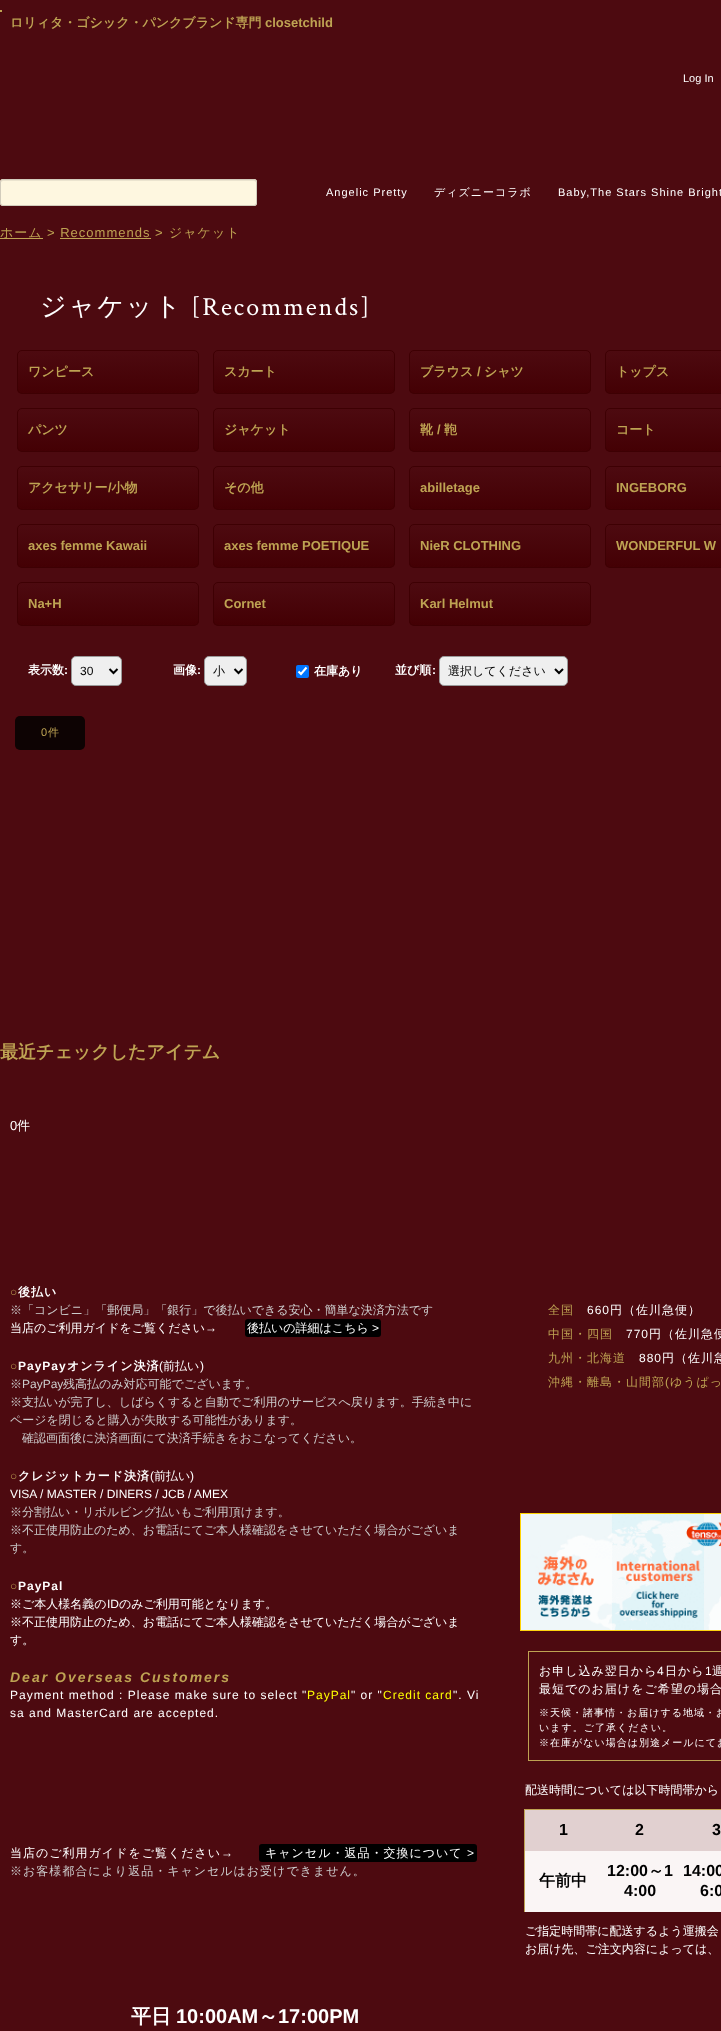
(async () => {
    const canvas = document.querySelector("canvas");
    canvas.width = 721;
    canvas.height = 2031;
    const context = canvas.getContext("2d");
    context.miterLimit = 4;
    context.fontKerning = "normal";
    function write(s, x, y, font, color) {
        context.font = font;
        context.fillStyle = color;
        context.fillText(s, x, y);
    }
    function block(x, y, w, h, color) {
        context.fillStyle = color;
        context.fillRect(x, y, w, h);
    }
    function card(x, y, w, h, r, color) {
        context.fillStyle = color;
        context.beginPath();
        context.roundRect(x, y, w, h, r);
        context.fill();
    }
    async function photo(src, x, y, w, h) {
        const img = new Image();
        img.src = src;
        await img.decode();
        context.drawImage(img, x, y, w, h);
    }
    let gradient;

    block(0, 0, 721, 2031, "rgb(77, 10, 16)");
    block(0, 10, 2, 2, "rgb(190, 163, 83)");
    write("ロリィタ・ゴシック・パンクブランド専門", 10, 27, "bold 13px WenQuanYi Zen Hei", "rgb(190, 163, 83)");
    write("closetchild", 265, 27, "bold 13px Liberation Sans", "rgb(190, 163, 83)");
    write("Log In", 683, 82, "11px Liberation Sans", "rgb(255, 255, 255)");
    card(0, 179, 257, 27, 3, "rgb(254, 247, 224)");
    context.fillStyle = "rgb(235, 228, 207)";
    context.beginPath();
    context.moveTo(3, 181);
    context.lineTo(254, 181);
    context.bezierCurveTo(255, 181, 256, 182, 256, 183);
    context.bezierCurveTo(256, 182, 256, 180, 254, 180);
    context.lineTo(3, 180);
    context.bezierCurveTo(1, 180, 1, 182, 1, 183);
    context.bezierCurveTo(1, 182, 2, 181, 3, 181);
    context.closePath();
    context.fill();
    context.beginPath();
    context.roundRect(0.5, 179.5, 256, 26, 2.5);
    context.strokeStyle = "rgb(210, 204, 188)";
    context.stroke();
    context.letterSpacing = "1px";
    write("Angelic Pretty", 326, 196, "11px Liberation Sans", "rgb(255, 255, 255)");
    write("ディズニーコラボ", 434, 196, "500 11px WenQuanYi Zen Hei", "rgb(255, 255, 255)");
    write("Baby,The Stars Shine Bright", 558, 196, "11px Liberation Sans", "rgb(255, 255, 255)");
    block(0, 238, 43, 1, "rgb(190, 163, 83)");
    write("ホーム", 0, 237, "500 13px WenQuanYi Zen Hei", "rgb(190, 163, 83)");
    write("> Recommends >", 47, 237, "13px Liberation Sans", "rgb(190, 163, 83)");
    block(60, 238, 91, 1, "rgb(190, 163, 83)");
    write("ジャケット", 169, 237, "500 13px WenQuanYi Zen Hei", "rgb(190, 163, 83)");
    context.letterSpacing = "2px";
    write("ジャケット", 40, 315, "500 26px WenQuanYi Zen Hei", "rgb(255, 255, 255)");
    write("[Recommends]", 191, 315, "26px Crimson Text", "rgb(255, 255, 255)");
    context.save();
    context.beginPath();
    context.roundRect(17, 350, 182, 44, 5);
    context.clip();
    gradient = context.createLinearGradient(108, 351, 108, 393);
    gradient.addColorStop(0.01, "rgb(77, 10, 16)");
    gradient.addColorStop(1, "rgb(68, 0, 4)");
    context.fillStyle = gradient;
    context.fillRect(17, 351, 182, 42);
    context.restore();
    context.beginPath();
    context.roundRect(17.5, 350.5, 181, 43, 4.5);
    context.strokeStyle = "rgb(62, 0, 3)";
    context.stroke();
    context.letterSpacing = "0px";
    write("ワンピース", 28, 376, "bold 13px WenQuanYi Zen Hei", "rgb(190, 163, 83)");
    context.save();
    context.beginPath();
    context.roundRect(213, 350, 182, 44, 5);
    context.clip();
    gradient = context.createLinearGradient(304, 351, 304, 393);
    gradient.addColorStop(0.01, "rgb(77, 10, 16)");
    gradient.addColorStop(1, "rgb(68, 0, 4)");
    context.fillStyle = gradient;
    context.fillRect(213, 351, 182, 42);
    context.restore();
    context.beginPath();
    context.roundRect(213.5, 350.5, 181, 43, 4.5);
    context.stroke();
    write("スカート", 224, 376, "bold 13px WenQuanYi Zen Hei", "rgb(190, 163, 83)");
    context.save();
    context.beginPath();
    context.roundRect(409, 350, 182, 44, 5);
    context.clip();
    gradient = context.createLinearGradient(500, 351, 500, 393);
    gradient.addColorStop(0.01, "rgb(77, 10, 16)");
    gradient.addColorStop(1, "rgb(68, 0, 4)");
    context.fillStyle = gradient;
    context.fillRect(409, 351, 182, 42);
    context.restore();
    context.beginPath();
    context.roundRect(409.5, 350.5, 181, 43, 4.5);
    context.stroke();
    write("ブラウス", 420, 376, "bold 13px WenQuanYi Zen Hei", "rgb(190, 163, 83)");
    write("/", 477, 376, "bold 13px Liberation Sans", "rgb(190, 163, 83)");
    write("シャツ", 484, 376, "bold 13px WenQuanYi Zen Hei", "rgb(190, 163, 83)");
    context.save();
    context.beginPath();
    context.roundRect(605, 350, 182, 44, 5);
    context.clip();
    gradient = context.createLinearGradient(696, 351, 696, 393);
    gradient.addColorStop(0.01, "rgb(77, 10, 16)");
    gradient.addColorStop(1, "rgb(68, 0, 4)");
    context.fillStyle = gradient;
    context.fillRect(605, 351, 116, 42);
    context.restore();
    context.beginPath();
    context.roundRect(605.5, 350.5, 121, 43, 4.5);
    context.stroke();
    write("トップス", 616, 376, "bold 13px WenQuanYi Zen Hei", "rgb(190, 163, 83)");
    context.save();
    context.beginPath();
    context.roundRect(17, 408, 182, 44, 5);
    context.clip();
    gradient = context.createLinearGradient(108, 409, 108, 451);
    gradient.addColorStop(0.01, "rgb(77, 10, 16)");
    gradient.addColorStop(1, "rgb(68, 0, 4)");
    context.fillStyle = gradient;
    context.fillRect(17, 409, 182, 42);
    context.restore();
    context.beginPath();
    context.roundRect(17.5, 408.5, 181, 43, 4.5);
    context.stroke();
    write("パンツ", 28, 434, "bold 13px WenQuanYi Zen Hei", "rgb(190, 163, 83)");
    context.save();
    context.beginPath();
    context.roundRect(213, 408, 182, 44, 5);
    context.clip();
    gradient = context.createLinearGradient(304, 409, 304, 451);
    gradient.addColorStop(0.01, "rgb(77, 10, 16)");
    gradient.addColorStop(1, "rgb(68, 0, 4)");
    context.fillStyle = gradient;
    context.fillRect(213, 409, 182, 42);
    context.restore();
    context.beginPath();
    context.roundRect(213.5, 408.5, 181, 43, 4.5);
    context.stroke();
    write("ジャケット", 224, 434, "bold 13px WenQuanYi Zen Hei", "rgb(190, 163, 83)");
    context.save();
    context.beginPath();
    context.roundRect(409, 408, 182, 44, 5);
    context.clip();
    gradient = context.createLinearGradient(500, 409, 500, 451);
    gradient.addColorStop(0.01, "rgb(77, 10, 16)");
    gradient.addColorStop(1, "rgb(68, 0, 4)");
    context.fillStyle = gradient;
    context.fillRect(409, 409, 182, 42);
    context.restore();
    context.beginPath();
    context.roundRect(409.5, 408.5, 181, 43, 4.5);
    context.stroke();
    write("靴", 420, 434, "bold 13px WenQuanYi Zen Hei", "rgb(190, 163, 83)");
    write("/", 437, 434, "bold 13px Liberation Sans", "rgb(190, 163, 83)");
    write("鞄", 444, 434, "bold 13px WenQuanYi Zen Hei", "rgb(190, 163, 83)");
    context.save();
    context.beginPath();
    context.roundRect(605, 408, 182, 44, 5);
    context.clip();
    gradient = context.createLinearGradient(696, 409, 696, 451);
    gradient.addColorStop(0.01, "rgb(77, 10, 16)");
    gradient.addColorStop(1, "rgb(68, 0, 4)");
    context.fillStyle = gradient;
    context.fillRect(605, 409, 116, 42);
    context.restore();
    context.beginPath();
    context.roundRect(605.5, 408.5, 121, 43, 4.5);
    context.stroke();
    write("コート", 616, 434, "bold 13px WenQuanYi Zen Hei", "rgb(190, 163, 83)");
    context.save();
    context.beginPath();
    context.roundRect(17, 466, 182, 44, 5);
    context.clip();
    gradient = context.createLinearGradient(108, 467, 108, 509);
    gradient.addColorStop(0.01, "rgb(77, 10, 16)");
    gradient.addColorStop(1, "rgb(68, 0, 4)");
    context.fillStyle = gradient;
    context.fillRect(17, 467, 182, 42);
    context.restore();
    context.beginPath();
    context.roundRect(17.5, 466.5, 181, 43, 4.5);
    context.stroke();
    write("アクセサリー 小物", 28, 492, "bold 13px WenQuanYi Zen Hei", "rgb(190, 163, 83)");
    write("/", 108, 492, "bold 13px Liberation Sans", "rgb(190, 163, 83)");
    context.save();
    context.beginPath();
    context.roundRect(213, 466, 182, 44, 5);
    context.clip();
    gradient = context.createLinearGradient(304, 467, 304, 509);
    gradient.addColorStop(0.01, "rgb(77, 10, 16)");
    gradient.addColorStop(1, "rgb(68, 0, 4)");
    context.fillStyle = gradient;
    context.fillRect(213, 467, 182, 42);
    context.restore();
    context.beginPath();
    context.roundRect(213.5, 466.5, 181, 43, 4.5);
    context.stroke();
    write("その他", 224, 492, "bold 13px WenQuanYi Zen Hei", "rgb(190, 163, 83)");
    context.save();
    context.beginPath();
    context.roundRect(409, 466, 182, 44, 5);
    context.clip();
    gradient = context.createLinearGradient(500, 467, 500, 509);
    gradient.addColorStop(0.01, "rgb(77, 10, 16)");
    gradient.addColorStop(1, "rgb(68, 0, 4)");
    context.fillStyle = gradient;
    context.fillRect(409, 467, 182, 42);
    context.restore();
    context.beginPath();
    context.roundRect(409.5, 466.5, 181, 43, 4.5);
    context.stroke();
    write("abilletage", 420, 492, "bold 13px Liberation Sans", "rgb(190, 163, 83)");
    context.save();
    context.beginPath();
    context.roundRect(605, 466, 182, 44, 5);
    context.clip();
    gradient = context.createLinearGradient(696, 467, 696, 509);
    gradient.addColorStop(0.01, "rgb(77, 10, 16)");
    gradient.addColorStop(1, "rgb(68, 0, 4)");
    context.fillStyle = gradient;
    context.fillRect(605, 467, 116, 42);
    context.restore();
    context.beginPath();
    context.roundRect(605.5, 466.5, 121, 43, 4.5);
    context.stroke();
    write("INGEBORG", 616, 492, "bold 13px Liberation Sans", "rgb(190, 163, 83)");
    context.save();
    context.beginPath();
    context.roundRect(17, 524, 182, 44, 5);
    context.clip();
    gradient = context.createLinearGradient(108, 525, 108, 567);
    gradient.addColorStop(0.01, "rgb(77, 10, 16)");
    gradient.addColorStop(1, "rgb(68, 0, 4)");
    context.fillStyle = gradient;
    context.fillRect(17, 525, 182, 42);
    context.restore();
    context.beginPath();
    context.roundRect(17.5, 524.5, 181, 43, 4.5);
    context.stroke();
    write("axes femme Kawaii", 28, 550, "bold 13px Liberation Sans", "rgb(190, 163, 83)");
    context.save();
    context.beginPath();
    context.roundRect(213, 524, 182, 44, 5);
    context.clip();
    gradient = context.createLinearGradient(304, 525, 304, 567);
    gradient.addColorStop(0.01, "rgb(77, 10, 16)");
    gradient.addColorStop(1, "rgb(68, 0, 4)");
    context.fillStyle = gradient;
    context.fillRect(213, 525, 182, 42);
    context.restore();
    context.beginPath();
    context.roundRect(213.5, 524.5, 181, 43, 4.5);
    context.stroke();
    write("axes femme POETIQUE", 224, 550, "bold 13px Liberation Sans", "rgb(190, 163, 83)");
    context.save();
    context.beginPath();
    context.roundRect(409, 524, 182, 44, 5);
    context.clip();
    gradient = context.createLinearGradient(500, 525, 500, 567);
    gradient.addColorStop(0.01, "rgb(77, 10, 16)");
    gradient.addColorStop(1, "rgb(68, 0, 4)");
    context.fillStyle = gradient;
    context.fillRect(409, 525, 182, 42);
    context.restore();
    context.beginPath();
    context.roundRect(409.5, 524.5, 181, 43, 4.5);
    context.stroke();
    write("NieR CLOTHING", 420, 550, "bold 13px Liberation Sans", "rgb(190, 163, 83)");
    context.save();
    context.beginPath();
    context.roundRect(605, 524, 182, 44, 5);
    context.clip();
    gradient = context.createLinearGradient(696, 525, 696, 567);
    gradient.addColorStop(0.01, "rgb(77, 10, 16)");
    gradient.addColorStop(1, "rgb(68, 0, 4)");
    context.fillStyle = gradient;
    context.fillRect(605, 525, 116, 42);
    context.restore();
    context.beginPath();
    context.roundRect(605.5, 524.5, 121, 43, 4.5);
    context.stroke();
    write("WONDERFUL W", 616, 550, "bold 13px Liberation Sans", "rgb(190, 163, 83)");
    context.save();
    context.beginPath();
    context.roundRect(17, 582, 182, 44, 5);
    context.clip();
    gradient = context.createLinearGradient(108, 583, 108, 625);
    gradient.addColorStop(0.01, "rgb(77, 10, 16)");
    gradient.addColorStop(1, "rgb(68, 0, 4)");
    context.fillStyle = gradient;
    context.fillRect(17, 583, 182, 42);
    context.restore();
    context.beginPath();
    context.roundRect(17.5, 582.5, 181, 43, 4.5);
    context.stroke();
    write("Na+H", 28, 608, "bold 13px Liberation Sans", "rgb(190, 163, 83)");
    context.save();
    context.beginPath();
    context.roundRect(213, 582, 182, 44, 5);
    context.clip();
    gradient = context.createLinearGradient(304, 583, 304, 625);
    gradient.addColorStop(0.01, "rgb(77, 10, 16)");
    gradient.addColorStop(1, "rgb(68, 0, 4)");
    context.fillStyle = gradient;
    context.fillRect(213, 583, 182, 42);
    context.restore();
    context.beginPath();
    context.roundRect(213.5, 582.5, 181, 43, 4.5);
    context.stroke();
    write("Cornet", 224, 608, "bold 13px Liberation Sans", "rgb(190, 163, 83)");
    context.save();
    context.beginPath();
    context.roundRect(409, 582, 182, 44, 5);
    context.clip();
    gradient = context.createLinearGradient(500, 583, 500, 625);
    gradient.addColorStop(0.01, "rgb(77, 10, 16)");
    gradient.addColorStop(1, "rgb(68, 0, 4)");
    context.fillStyle = gradient;
    context.fillRect(409, 583, 182, 42);
    context.restore();
    context.beginPath();
    context.roundRect(409.5, 582.5, 181, 43, 4.5);
    context.stroke();
    write("Karl Helmut", 420, 608, "bold 13px Liberation Sans", "rgb(190, 163, 83)");
    write("表示数", 28, 674, "bold 12px WenQuanYi Zen Hei", "rgb(255, 255, 255)");
    write(":", 64, 674, "bold 12px Liberation Sans", "rgb(255, 255, 255)");
    context.fillStyle = "rgb(239, 239, 239)";
    context.beginPath();
    context.roundRect(71.5, 656.5, 50, 29, 4.5);
    context.fill();
    context.strokeStyle = "rgb(153, 153, 153)";
    context.stroke();
    context.beginPath();
    context.moveTo(109.5, 669);
    context.lineTo(113.5, 673);
    context.lineTo(117.5, 669);
    context.strokeStyle = "rgb(0, 0, 0)";
    context.lineWidth = 2;
    context.stroke();
    write("30", 80, 675, "12px Liberation Sans", "rgb(0, 0, 0)");
    write("画像", 173, 674, "bold 12px WenQuanYi Zen Hei", "rgb(255, 255, 255)");
    write(":", 197, 674, "bold 12px Liberation Sans", "rgb(255, 255, 255)");
    context.fillStyle = "rgb(239, 239, 239)";
    context.beginPath();
    context.roundRect(204.5, 656.5, 42, 29, 4.5);
    context.fill();
    context.strokeStyle = "rgb(153, 153, 153)";
    context.lineWidth = 1;
    context.stroke();
    context.beginPath();
    context.moveTo(234.5, 669);
    context.lineTo(238.5, 673);
    context.lineTo(242.5, 669);
    context.strokeStyle = "rgb(0, 0, 0)";
    context.lineWidth = 2;
    context.stroke();
    write("小", 213, 675, "500 12px WenQuanYi Zen Hei", "rgb(0, 0, 0)");
    card(296, 665, 13, 13, 2, "rgb(0, 117, 255)");
    context.beginPath();
    context.moveTo(298.5, 671.5);
    context.lineTo(301, 674);
    context.lineTo(306.5, 667.5);
    context.strokeStyle = "rgb(255, 255, 255)";
    context.lineWidth = 2.1;
    context.stroke();
    write("在庫あり", 314, 675, "bold 12px WenQuanYi Zen Hei", "rgb(255, 255, 255)");
    write("並び順", 395, 674, "bold 12px WenQuanYi Zen Hei", "rgb(255, 255, 255)");
    write(":", 432, 674, "bold 12px Liberation Sans", "rgb(255, 255, 255)");
    context.fillStyle = "rgb(239, 239, 239)";
    context.beginPath();
    context.roundRect(439.5, 656.5, 128, 29, 4.5);
    context.fill();
    context.strokeStyle = "rgb(153, 153, 153)";
    context.lineWidth = 1;
    context.stroke();
    context.beginPath();
    context.moveTo(555, 669);
    context.lineTo(559, 673);
    context.lineTo(563, 669);
    context.strokeStyle = "rgb(0, 0, 0)";
    context.lineWidth = 2;
    context.stroke();
    write("選択してください", 448, 675, "500 12px WenQuanYi Zen Hei", "rgb(0, 0, 0)");
    card(15, 716, 70, 34, 5, "rgb(13, 3, 3)");
    write("0", 41, 736, "11px Liberation Sans", "rgb(190, 163, 83)");
    write("件", 48, 736, "500 11px WenQuanYi Zen Hei", "rgb(190, 163, 83)");
    write("最近チェックしたアイテム", 0, 1058, "bold 18px WenQuanYi Zen Hei", "rgb(190, 163, 83)");
    write("0", 10, 1130, "13px Liberation Sans", "rgb(255, 255, 255)");
    write("件", 17, 1130, "500 13px WenQuanYi Zen Hei", "rgb(255, 255, 255)");
    context.letterSpacing = "1px";
    write("○", 10, 1296, "bold 12px Liberation Sans", "rgb(190, 163, 83)");
    write("後払い", 18, 1296, "bold 12px WenQuanYi Zen Hei", "rgb(255, 255, 255)");
    context.letterSpacing = "0px";
    write("※「コンビニ」「郵便局」「銀行」で後払いできる安心・簡単な決済方法です", 10, 1314, "500 12px WenQuanYi Zen Hei", "rgb(204, 204, 204)");
    write("当店のご利用ガイドをご覧ください", 10, 1332, "500 12px WenQuanYi Zen Hei", "rgb(255, 255, 255)");
    write("→", 205, 1332, "12px Liberation Sans", "rgb(255, 255, 255)");
    card(245, 1319, 136, 18, 3, "rgb(0, 0, 0)");
    write("後払いの詳細はこちら", 247, 1332, "500 12px WenQuanYi Zen Hei", "rgb(255, 255, 255)");
    write(">", 372, 1332, "12px Liberation Sans", "rgb(255, 255, 255)");
    context.letterSpacing = "1px";
    write("○", 10, 1370, "bold 12px Liberation Sans", "rgb(190, 163, 83)");
    write("PayPay", 18, 1370, "bold 12px Liberation Sans", "rgb(255, 255, 255)");
    write("オンライン決済", 67, 1370, "bold 12px WenQuanYi Zen Hei", "rgb(255, 255, 255)");
    context.letterSpacing = "0px";
    write("(", 159, 1370, "12px Liberation Sans", "rgb(255, 255, 255)");
    write("前払い", 163, 1370, "500 12px WenQuanYi Zen Hei", "rgb(255, 255, 255)");
    write(")", 200, 1370, "12px Liberation Sans", "rgb(255, 255, 255)");
    write("※", 10, 1388, "500 12px WenQuanYi Zen Hei", "rgb(204, 204, 204)");
    write("PayPay", 22, 1388, "12px Liberation Sans", "rgb(204, 204, 204)");
    write("残高払のみ対応可能でございます。", 63, 1388, "500 12px WenQuanYi Zen Hei", "rgb(204, 204, 204)");
    write("※支払いが完了し、しばらくすると自動でご利用のサービスへ戻ります。手続き中に", 10, 1406, "500 12px WenQuanYi Zen Hei", "rgb(204, 204, 204)");
    write("ページを閉じると購入が失敗する可能性があります。", 10, 1424, "500 12px WenQuanYi Zen Hei", "rgb(204, 204, 204)");
    write("確認画面後に決済画面にて決済手続きをおこなってください。", 22, 1442, "500 12px WenQuanYi Zen Hei", "rgb(204, 204, 204)");
    context.letterSpacing = "1px";
    write("○", 10, 1480, "bold 12px Liberation Sans", "rgb(190, 163, 83)");
    write("クレジットカード決済", 18, 1480, "bold 12px WenQuanYi Zen Hei", "rgb(255, 255, 255)");
    context.letterSpacing = "0px";
    write("(", 150, 1480, "12px Liberation Sans", "rgb(255, 255, 255)");
    write("前払い", 154, 1480, "500 12px WenQuanYi Zen Hei", "rgb(255, 255, 255)");
    write(")", 190, 1480, "12px Liberation Sans", "rgb(255, 255, 255)");
    write("VISA / MASTER / DINERS / JCB / AMEX", 10, 1498, "12px Liberation Sans", "rgb(255, 255, 255)");
    write("※分割払い・リボルビング払いもご利用頂けます。", 10, 1516, "500 12px WenQuanYi Zen Hei", "rgb(204, 204, 204)");
    write("※不正使用防止のため、お電話にてご本人様確認をさせていただく場合がございま", 10, 1534, "500 12px WenQuanYi Zen Hei", "rgb(204, 204, 204)");
    write("す。", 10, 1552, "500 12px WenQuanYi Zen Hei", "rgb(204, 204, 204)");
    context.letterSpacing = "1px";
    write("○", 10, 1590, "bold 12px Liberation Sans", "rgb(190, 163, 83)");
    write("PayPal", 18, 1590, "bold 12px Liberation Sans", "rgb(255, 255, 255)");
    context.letterSpacing = "0px";
    write("※ご本人様名義の", 10, 1608, "500 12px WenQuanYi Zen Hei", "rgb(255, 255, 255)");
    write("ID", 107, 1608, "12px Liberation Sans", "rgb(255, 255, 255)");
    write("のみご利用可能となります。", 119, 1608, "500 12px WenQuanYi Zen Hei", "rgb(255, 255, 255)");
    write("※不正使用防止のため、お電話にてご本人様確認をさせていただく場合がございま", 10, 1626, "500 12px WenQuanYi Zen Hei", "rgb(255, 255, 255)");
    write("す。", 10, 1644, "500 12px WenQuanYi Zen Hei", "rgb(255, 255, 255)");
    context.letterSpacing = "2px";
    write("Dear Overseas Customers", 10, 1682, "italic bold 14px Liberation Sans", "rgb(190, 163, 83)");
    context.letterSpacing = "1px";
    write("Payment method : Please make sure to select \"", 10, 1699, "12px Liberation Sans", "rgb(255, 255, 255)");
    write("PayPal", 307, 1699, "12px Liberation Sans", "rgb(255, 255, 0)");
    write("\" or \"", 351, 1699, "12px Liberation Sans", "rgb(255, 255, 255)");
    write("Credit card", 383, 1699, "12px Liberation Sans", "rgb(255, 255, 0)");
    write("\". Vi", 453, 1699, "12px Liberation Sans", "rgb(255, 255, 255)");
    write("sa and MasterCard are accepted.", 10, 1717, "12px Liberation Sans", "rgb(255, 255, 255)");
    write("当店のご利用ガイドをご覧ください", 10, 1857, "500 12px WenQuanYi Zen Hei", "rgb(255, 255, 255)");
    write("→", 221, 1857, "12px Liberation Sans", "rgb(255, 255, 255)");
    card(259, 1844, 218, 18, 3, "rgb(0, 0, 0)");
    write("キャンセル・返品・交換について", 265, 1857, "500 12px WenQuanYi Zen Hei", "rgb(255, 255, 255)");
    write(">", 467, 1857, "12px Liberation Sans", "rgb(255, 255, 255)");
    write("※お客様都合により返品・キャンセルはお受けできません。", 10, 1875, "500 12px WenQuanYi Zen Hei", "rgb(204, 204, 204)");
    context.letterSpacing = "0px";
    write("平日", 131, 2023, "bold 20px WenQuanYi Zen Hei", "rgb(255, 255, 255)");
    write("10:00AM", 176, 2023, "bold 20px Liberation Sans", "rgb(255, 255, 255)");
    write("～", 258, 2023, "bold 20px WenQuanYi Zen Hei", "rgb(255, 255, 255)");
    write("17:00PM", 278, 2023, "bold 20px Liberation Sans", "rgb(255, 255, 255)");
    context.letterSpacing = "1px";
    write("全国", 548, 1314, "500 12px WenQuanYi Zen Hei", "rgb(190, 163, 83)");
    write("660", 587, 1314, "12px Liberation Sans", "rgb(255, 255, 255)");
    write("円（佐川急便）", 610, 1314, "500 12px WenQuanYi Zen Hei", "rgb(255, 255, 255)");
    write("中国・四国", 548, 1338, "500 12px WenQuanYi Zen Hei", "rgb(190, 163, 83)");
    write("770", 626, 1338, "12px Liberation Sans", "rgb(255, 255, 255)");
    write("円（佐川急便", 649, 1338, "500 12px WenQuanYi Zen Hei", "rgb(255, 255, 255)");
    write("九州・北海道", 548, 1362, "500 12px WenQuanYi Zen Hei", "rgb(190, 163, 83)");
    write("880", 639, 1362, "12px Liberation Sans", "rgb(255, 255, 255)");
    write("円（佐川急", 662, 1362, "500 12px WenQuanYi Zen Hei", "rgb(255, 255, 255)");
    write("沖縄・離島・山間部", 548, 1386, "500 12px WenQuanYi Zen Hei", "rgb(190, 163, 83)");
    write("(", 665, 1386, "12px Liberation Sans", "rgb(190, 163, 83)");
    write("ゆうぱっ", 670, 1386, "500 12px WenQuanYi Zen Hei", "rgb(190, 163, 83)");
    await photo("media/1.png", 520, 1513, 201, 118);
    context.strokeStyle = "rgb(190, 163, 83)";
    context.lineWidth = 1;
    context.strokeRect(528.5, 1651.5, 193, 109);
    write("お申し込み翌日から", 539, 1675, "500 12px WenQuanYi Zen Hei", "rgb(255, 255, 255)");
    write("4", 657, 1675, "12px Liberation Sans", "rgb(255, 255, 255)");
    write("日から", 665, 1675, "500 12px WenQuanYi Zen Hei", "rgb(255, 255, 255)");
    write("1", 705, 1675, "12px Liberation Sans", "rgb(255, 255, 255)");
    write("週", 712, 1675, "500 12px WenQuanYi Zen Hei", "rgb(255, 255, 255)");
    write("最短でのお届けをご希望の場合", 539, 1693, "500 12px WenQuanYi Zen Hei", "rgb(255, 255, 255)");
    write("※天候・諸事情・お届けする地域・お", 539, 1716, "500 10px WenQuanYi Zen Hei", "rgb(255, 255, 255)");
    write("います。ご了承ください。", 539, 1731, "500 10px WenQuanYi Zen Hei", "rgb(255, 255, 255)");
    write("※在庫がない場合は別途メールにてお", 539, 1746, "500 10px WenQuanYi Zen Hei", "rgb(255, 255, 255)");
    context.letterSpacing = "0px";
    write("配送時間については以下時間帯から", 525, 1794, "500 12px WenQuanYi Zen Hei", "rgb(255, 255, 255)");
    block(525, 1851, 196, 61, "rgb(250, 245, 245)");
    block(524, 1809, 197, 1, "rgb(190, 163, 83)");
    block(524, 1809, 1, 103, "rgb(190, 163, 83)");
    block(525, 1810, 196, 41, "rgb(225, 208, 208)");
    write("1", 559, 1835, "bold 16px Liberation Sans", "rgb(0, 0, 0)");
    write("2", 635, 1835, "bold 16px Liberation Sans", "rgb(0, 0, 0)");
    write("3", 712, 1835, "bold 16px Liberation Sans", "rgb(0, 0, 0)");
    write("午前中", 539, 1886, "bold 16px WenQuanYi Zen Hei", "rgb(0, 0, 0)");
    write("12:00", 607, 1876, "bold 16px Liberation Sans", "rgb(0, 0, 0)");
    write("～", 648, 1876, "bold 16px WenQuanYi Zen Hei", "rgb(0, 0, 0)");
    write("1", 664, 1876, "bold 16px Liberation Sans", "rgb(0, 0, 0)");
    write("4:00", 624, 1896, "bold 16px Liberation Sans", "rgb(0, 0, 0)");
    write("14:00", 683, 1876, "bold 16px Liberation Sans", "rgb(0, 0, 0)");
    write("6:0", 700, 1896, "bold 16px Liberation Sans", "rgb(0, 0, 0)");
    write("ご指定時間帯に配送するよう運搬会", 525, 1935, "500 12px WenQuanYi Zen Hei", "rgb(255, 255, 255)");
    write("お届け先、ご注文内容によっては、", 525, 1953, "500 12px WenQuanYi Zen Hei", "rgb(255, 255, 255)");
})();
